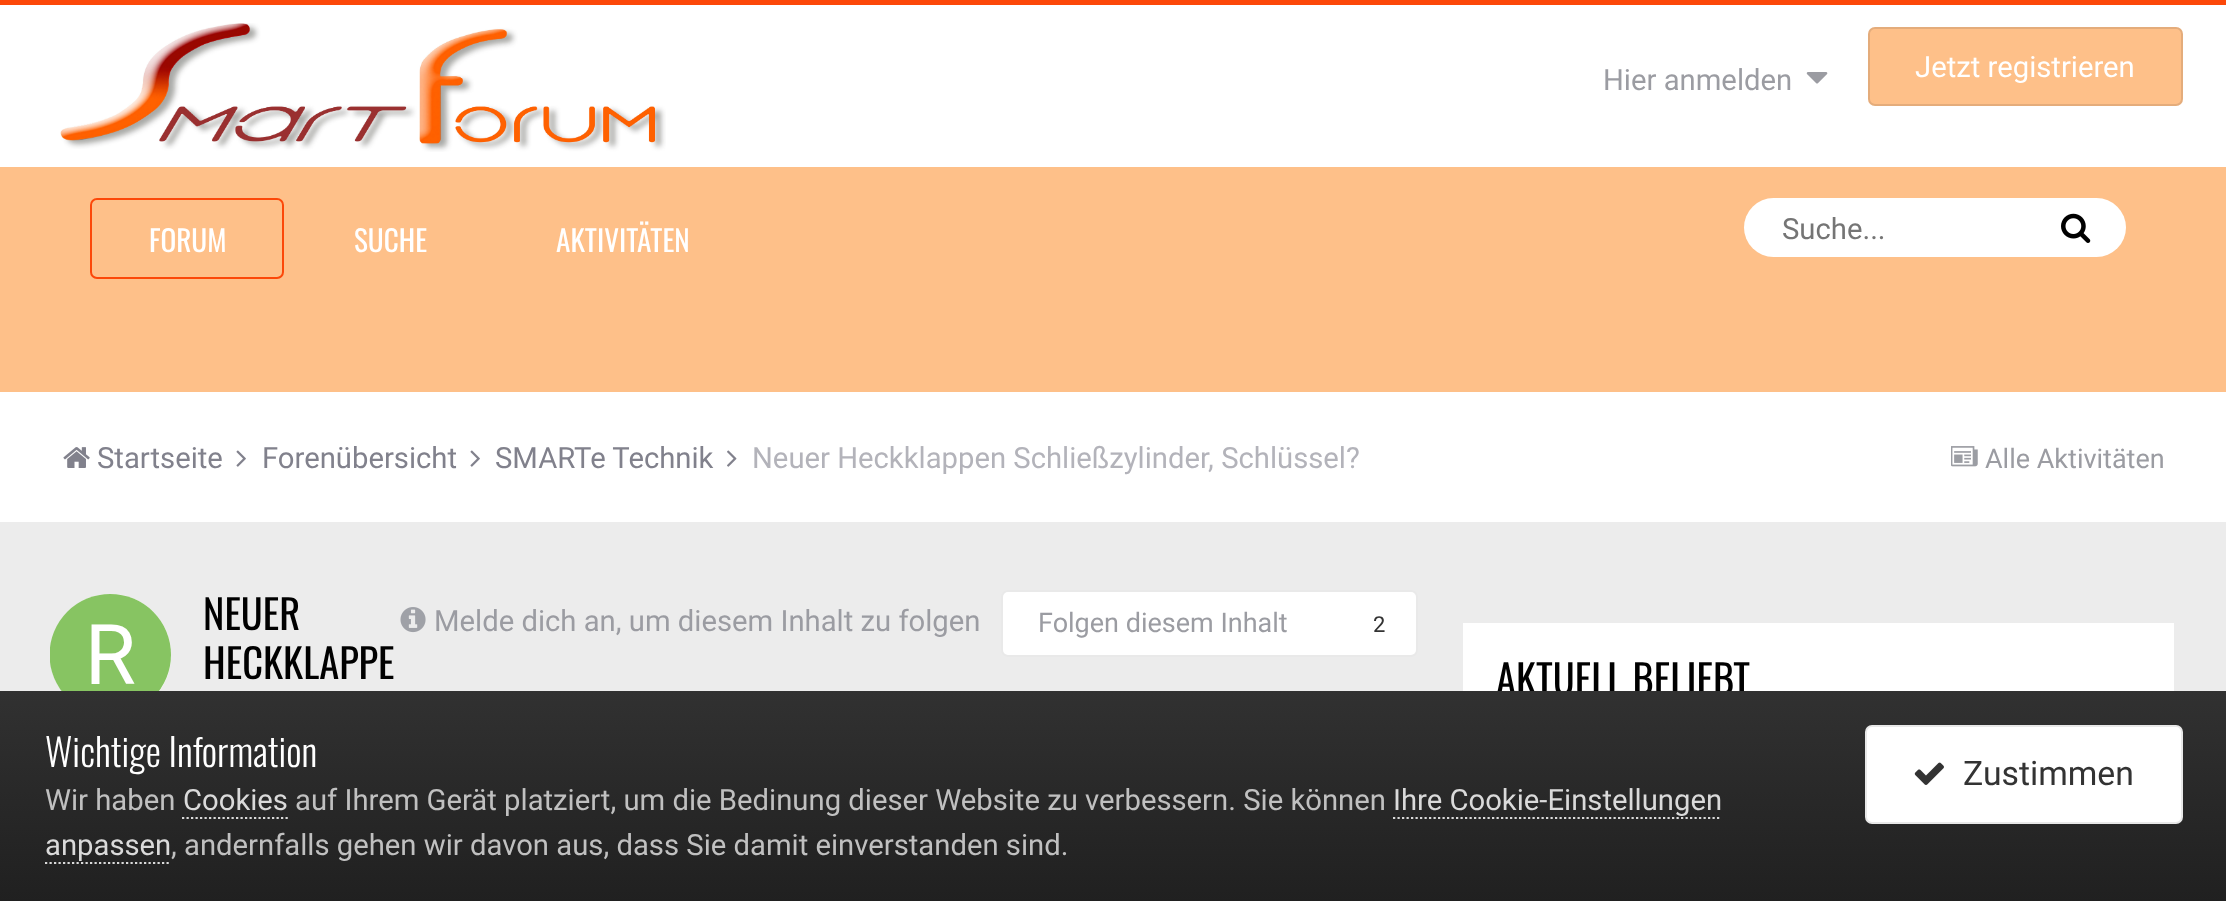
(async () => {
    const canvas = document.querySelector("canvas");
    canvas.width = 2226;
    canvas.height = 901;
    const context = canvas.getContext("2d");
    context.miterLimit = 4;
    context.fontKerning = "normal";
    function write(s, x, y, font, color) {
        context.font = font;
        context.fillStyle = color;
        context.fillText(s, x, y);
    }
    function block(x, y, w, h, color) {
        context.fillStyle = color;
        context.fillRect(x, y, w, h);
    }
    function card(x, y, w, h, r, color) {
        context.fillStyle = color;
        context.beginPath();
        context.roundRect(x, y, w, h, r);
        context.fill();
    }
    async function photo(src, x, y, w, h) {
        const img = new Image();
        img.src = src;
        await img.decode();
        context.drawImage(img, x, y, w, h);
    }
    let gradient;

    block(0, 0, 2226, 901, "rgb(236, 236, 236)");
    block(0, 5, 2226, 162, "rgb(255, 255, 255)");
    block(0, 0, 2226, 5, "rgb(252, 72, 9)");
    await photo("media/1.png", 60, 23, 606, 129);
    write("Hier anmelden", 1603, 90, "29.25px Roboto", "rgb(155, 156, 162)");
    await photo("media/2.png", 1806, 72, 22, 12);
    card(1868, 27, 315, 79, 7, "rgb(254, 192, 137)");
    context.beginPath();
    context.roundRect(1869, 28, 313, 77, 6);
    context.strokeStyle = "rgba(0, 0, 0, 0.1)";
    context.lineWidth = 2;
    context.stroke();
    write("Jetzt registrieren", 1915, 77, "29.25px Roboto", "rgb(255, 255, 255)");
    block(0, 167, 2226, 225, "rgb(254, 192, 137)");
    context.beginPath();
    context.roundRect(91, 199, 192, 79, 6);
    context.strokeStyle = "rgb(252, 72, 9)";
    context.stroke();
    write("FORUM", 149, 252, "29.25px Oswald", "rgb(255, 255, 255)");
    write("SUCHE", 354, 252, "29.25px Oswald", "rgb(255, 255, 255)");
    write("AKTIVITÄTEN", 556, 252, "29.25px Oswald", "rgb(255, 255, 255)");
    card(1744, 198, 382, 59, 29.5, "rgb(255, 255, 255)");
    write("Suche...", 1782, 239, "29.25px Roboto", "rgb(117, 117, 117)");
    await photo("media/3.png", 2061, 213, 30, 30);
    block(0, 392, 2226, 130, "rgb(255, 255, 255)");
    await photo("media/4.png", 63, 447, 27, 21);
    write("Startseite", 97, 468, "29.25px Roboto", "rgb(129, 129, 140)");
    await photo("media/5.png", 236, 450, 10, 17);
    write("Forenübersicht", 262, 468, "29.25px Roboto", "rgb(129, 129, 140)");
    await photo("media/5.png", 470, 450, 10, 17);
    write("SMARTe Technik", 495, 468, "29.25px Roboto", "rgb(129, 129, 140)");
    await photo("media/6.png", 727, 450, 10, 17);
    write("Neuer Heckklappen Schließzylinder, Schlüssel?", 752, 468, "29.25px Roboto", "rgb(179, 179, 186)");
    await photo("media/7.png", 1951, 446, 27, 21);
    write("Alle Aktivitäten", 1985, 468, "27px Roboto", "rgb(155, 156, 162)");
    card(50, 594, 121, 122, 60.5, "rgb(255, 255, 255)");
    await photo("media/8.png", 50, 594, 121, 97);
    write("NEUER", 203, 630, "40.5px Oswald", "rgb(0, 0, 0)");
    write("HECKKLAPPE", 203, 679, "40.5px Oswald", "rgb(0, 0, 0)");
    await photo("media/9.png", 400, 607, 26, 26);
    write("Melde dich an, um diesem Inhalt zu folgen", 434, 631, "29.25px Roboto", "rgb(155, 156, 162)");
    context.fillStyle = "rgb(255, 255, 255)";
    context.beginPath();
    context.roundRect(1002, 591, 415, 65, 6);
    context.fill();
    context.strokeStyle = "rgb(233, 233, 233)";
    context.stroke();
    write("Folgen diesem Inhalt", 1038, 632, "27px Roboto", "rgb(155, 156, 162)");
    write("2", 1373, 632, "22px Roboto", "rgb(51, 51, 51)");
    block(1463, 623, 711, 68, "rgb(255, 255, 255)");
    write("AKTUELL BELIEBT", 1496, 695, "40.5px Oswald", "rgb(0, 0, 0)");
    gradient = context.createLinearGradient(1114, 691, 1114, 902);
    gradient.addColorStop(0, "rgb(49, 49, 49)");
    gradient.addColorStop(1, "rgb(32, 32, 32)");
    context.fillStyle = gradient;
    context.fillRect(0, 691, 2226, 210);
    write("Wichtige Information", 45, 767, "300 38.25px Oswald", "rgb(255, 255, 255)");
    write("Wir haben", 45, 810, "29.25px Roboto", "rgb(192, 192, 192)");
    write("Cookies", 183, 810, "29.25px Roboto", "rgb(218, 218, 218)");
    context.beginPath();
    context.moveTo(182, 818);
    context.lineTo(288, 818);
    context.strokeStyle = "rgb(218, 218, 218)";
    context.lineWidth = 2.2;
    context.setLineDash([2.25, 2.25]);
    context.stroke();
    write("auf Ihrem Gerät platziert, um die Bedinung dieser Website zu verbessern. Sie können", 295, 810, "29.25px Roboto", "rgb(192, 192, 192)");
    context.beginPath();
    context.moveTo(1393, 818);
    context.lineTo(1721, 818);
    context.stroke();
    write("Ihre Cookie-Einstellungen", 1393, 810, "29.25px Roboto", "rgb(218, 218, 218)");
    write("anpassen", 45, 855, "29.25px Roboto", "rgb(218, 218, 218)");
    context.beginPath();
    context.moveTo(45, 863);
    context.lineTo(171, 863);
    context.stroke();
    write(", andernfalls gehen wir davon aus, dass Sie damit einverstanden sind.", 171, 855, "29.25px Roboto", "rgb(192, 192, 192)");
    context.fillStyle = "rgb(255, 255, 255)";
    context.beginPath();
    context.roundRect(1866, 726, 316, 97, 6);
    context.fill();
    context.strokeStyle = "rgb(232, 232, 232)";
    context.lineWidth = 2;
    context.setLineDash([]);
    context.stroke();
    await photo("media/10.png", 1914, 762, 30, 23);
    write("Zustimmen", 1963, 785, "33.75px Roboto", "rgb(51, 51, 51)");
})();
